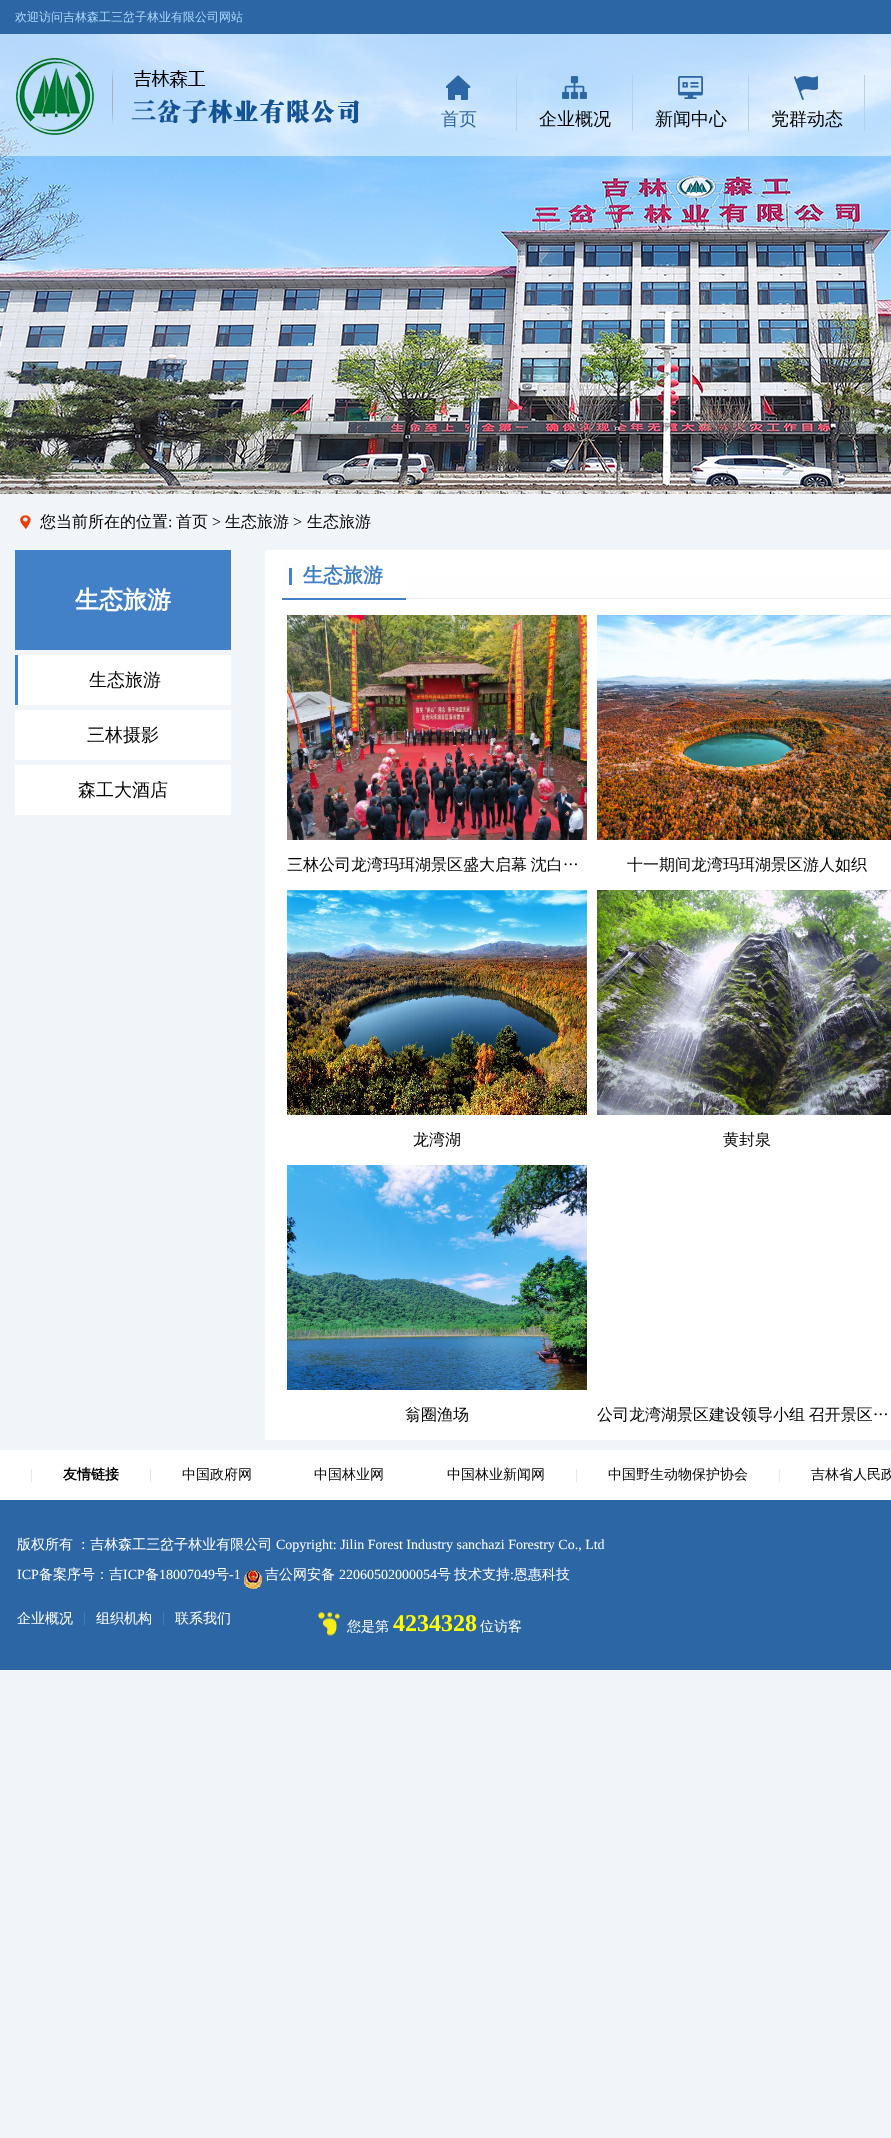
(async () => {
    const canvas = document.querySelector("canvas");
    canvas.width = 891;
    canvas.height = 2138;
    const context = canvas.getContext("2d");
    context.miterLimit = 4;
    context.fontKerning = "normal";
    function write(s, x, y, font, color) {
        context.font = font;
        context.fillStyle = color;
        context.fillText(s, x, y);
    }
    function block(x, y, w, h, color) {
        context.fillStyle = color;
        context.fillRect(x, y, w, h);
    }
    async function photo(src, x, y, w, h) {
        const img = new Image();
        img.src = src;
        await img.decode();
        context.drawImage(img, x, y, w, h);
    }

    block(0, 0, 891, 2138, "rgb(241, 245, 249)");
    block(0, 0, 891, 34, "rgb(44, 102, 165)");
    write("欢迎访问吉林森工三岔子林业有限公司网站", 15, 21, "500 12px WenQuanYi Zen Hei", "rgb(172, 216, 253)");
    await photo("media/1.png", 0, 34, 891, 460);
    block(0, 34, 891, 122, "rgba(255, 255, 255, 0.5)");
    await photo("media/2.png", 16, 58, 343, 77);
    block(516, 75, 1, 56, "rgb(182, 208, 231)");
    await photo("media/3.png", 446, 75, 25, 25);
    write("首页", 441, 125, "500 18px WenQuanYi Zen Hei", "rgb(45, 102, 165)");
    block(632, 75, 1, 56, "rgb(182, 208, 231)");
    await photo("media/4.png", 562, 76, 25, 23);
    write("企业概况", 539, 125, "500 18px WenQuanYi Zen Hei", "rgb(0, 0, 0)");
    block(748, 75, 1, 56, "rgb(182, 208, 231)");
    await photo("media/5.png", 678, 76, 25, 23);
    write("新闻中心", 655, 125, "500 18px WenQuanYi Zen Hei", "rgb(0, 0, 0)");
    block(864, 75, 1, 56, "rgb(182, 208, 231)");
    await photo("media/6.png", 794, 76, 24, 24);
    write("党群动态", 771, 125, "500 18px WenQuanYi Zen Hei", "rgb(0, 0, 0)");
    await photo("media/7.png", 20, 515, 11, 14);
    write("您当前所在的位置", 40, 527, "500 16px WenQuanYi Zen Hei", "rgb(0, 0, 0)");
    write(":", 168, 527, "16px Liberation Serif", "rgb(0, 0, 0)");
    write("首页", 176, 527, "500 16px WenQuanYi Zen Hei", "rgb(0, 0, 0)");
    write(">", 212, 527, "16px Liberation Serif", "rgb(0, 0, 0)");
    write("生态旅游", 225, 527, "500 16px WenQuanYi Zen Hei", "rgb(0, 0, 0)");
    write(">", 293, 527, "16px Liberation Serif", "rgb(0, 0, 0)");
    write("生态旅游", 307, 527, "500 16px WenQuanYi Zen Hei", "rgb(0, 0, 0)");
    block(15, 550, 216, 100, "rgb(66, 129, 199)");
    write("生态旅游", 75, 608, "bold 24px WenQuanYi Zen Hei", "rgb(255, 255, 255)");
    block(18, 655, 213, 50, "rgb(255, 255, 255)");
    block(15, 655, 3, 50, "rgb(66, 129, 199)");
    write("生态旅游", 89, 686, "500 18px WenQuanYi Zen Hei", "rgb(0, 0, 0)");
    block(15, 710, 216, 50, "rgb(255, 255, 255)");
    write("三林摄影", 87, 741, "500 18px WenQuanYi Zen Hei", "rgb(0, 0, 0)");
    block(15, 765, 216, 50, "rgb(255, 255, 255)");
    write("森工大酒店", 78, 796, "500 18px WenQuanYi Zen Hei", "rgb(0, 0, 0)");
    block(265, 550, 626, 890, "rgb(255, 255, 255)");
    await photo("media/8.png", 282, 559, 609, 41);
    write("生态旅游", 303, 582, "bold 20px WenQuanYi Zen Hei", "rgb(66, 129, 199)");
    await photo("media/9.png", 287, 615, 300, 225);
    context.wordSpacing = "-1px";
    write("三林公司龙湾玛珥湖景区盛大启幕 沈白…", 287, 870, "500 16px WenQuanYi Zen Hei", "rgb(0, 0, 0)");
    await photo("media/10.png", 597, 615, 294, 225);
    context.wordSpacing = "0px";
    write("十一期间龙湾玛珥湖景区游人如织", 627, 870, "500 16px WenQuanYi Zen Hei", "rgb(0, 0, 0)");
    await photo("media/11.png", 287, 890, 300, 225);
    write("龙湾湖", 413, 1145, "500 16px WenQuanYi Zen Hei", "rgb(0, 0, 0)");
    await photo("media/12.png", 597, 890, 294, 225);
    write("黄封泉", 723, 1145, "500 16px WenQuanYi Zen Hei", "rgb(0, 0, 0)");
    await photo("media/13.png", 287, 1165, 300, 225);
    write("翁圈渔场", 405, 1420, "500 16px WenQuanYi Zen Hei", "rgb(0, 0, 0)");
    context.wordSpacing = "-1px";
    write("公司龙湾湖景区建设领导小组 召开景区…", 597, 1420, "500 16px WenQuanYi Zen Hei", "rgb(0, 0, 0)");
    block(0, 1500, 891, 170, "rgb(45, 102, 165)");
    block(0, 1450, 891, 50, "rgb(255, 255, 255)");
    context.wordSpacing = "0px";
    write("|", 30, 1479, "14px Liberation Serif", "rgb(225, 225, 225)");
    write("友情链接", 63, 1479, "bold 14px WenQuanYi Zen Hei", "rgb(0, 0, 0)");
    write("|", 149, 1479, "14px Liberation Serif", "rgb(225, 225, 225)");
    write("中国政府网", 182, 1479, "500 14px WenQuanYi Zen Hei", "rgb(0, 0, 0)");
    write("中国林业网", 314, 1479, "500 14px WenQuanYi Zen Hei", "rgb(0, 0, 0)");
    write("中国林业新闻网", 447, 1479, "500 14px WenQuanYi Zen Hei", "rgb(0, 0, 0)");
    write("|", 575, 1479, "14px Liberation Serif", "rgb(225, 225, 225)");
    write("中国野生动物保护协会", 608, 1479, "500 14px WenQuanYi Zen Hei", "rgb(0, 0, 0)");
    write("|", 778, 1479, "14px Liberation Serif", "rgb(225, 225, 225)");
    write("吉林省人民政", 811, 1479, "500 14px WenQuanYi Zen Hei", "rgb(0, 0, 0)");
    context.wordSpacing = "-1px";
    write("版权所有 ：吉林森工三岔子林业有限公司", 17, 1549, "500 14px WenQuanYi Zen Hei", "rgb(255, 255, 255)");
    context.wordSpacing = "0px";
    write("Copyright: Jilin Forest Industry sanchazi Forestry Co., Ltd", 276, 1549, "14px Liberation Serif", "rgb(255, 255, 255)");
    write("ICP", 17, 1579, "14px Liberation Serif", "rgb(255, 255, 255)");
    write("备案序号：吉", 39, 1579, "500 14px WenQuanYi Zen Hei", "rgb(255, 255, 255)");
    write("ICP", 123, 1579, "14px Liberation Serif", "rgb(255, 255, 255)");
    write("备", 145, 1579, "500 14px WenQuanYi Zen Hei", "rgb(255, 255, 255)");
    write("18007049", 159, 1579, "14px Liberation Serif", "rgb(255, 255, 255)");
    write("号", 215, 1579, "500 14px WenQuanYi Zen Hei", "rgb(255, 255, 255)");
    write("-1", 229, 1579, "14px Liberation Serif", "rgb(255, 255, 255)");
    await photo("media/14.png", 244, 1570, 18, 19);
    write("吉公网安备", 265, 1579, "500 14px WenQuanYi Zen Hei", "rgb(255, 255, 255)");
    write("22060502000054", 339, 1579, "14px Liberation Serif", "rgb(255, 255, 255)");
    write("号", 437, 1579, "500 14px WenQuanYi Zen Hei", "rgb(255, 255, 255)");
    write("技术支持", 454, 1579, "500 14px WenQuanYi Zen Hei", "rgb(255, 255, 255)");
    write(":", 510, 1579, "14px Liberation Serif", "rgb(255, 255, 255)");
    write("恩惠科技", 514, 1579, "500 14px WenQuanYi Zen Hei", "rgb(255, 255, 255)");
    write("企业概况", 17, 1623, "500 14px WenQuanYi Zen Hei", "rgb(255, 255, 255)");
    write("|", 83, 1622, "14px Liberation Serif", "rgb(65, 140, 196)");
    write("组织机构", 96, 1623, "500 14px WenQuanYi Zen Hei", "rgb(255, 255, 255)");
    write("|", 162, 1622, "14px Liberation Serif", "rgb(65, 140, 196)");
    write("联系我们", 175, 1623, "500 14px WenQuanYi Zen Hei", "rgb(255, 255, 255)");
    await photo("media/15.png", 318, 1612, 22, 24);
    write("您是第", 347, 1631, "500 14px WenQuanYi Zen Hei", "rgb(255, 255, 255)");
    write("4234328", 393, 1631, "bold 24px Liberation Serif", "rgb(255, 255, 0)");
    write("位访客", 480, 1631, "500 14px WenQuanYi Zen Hei", "rgb(255, 255, 255)");
})();
